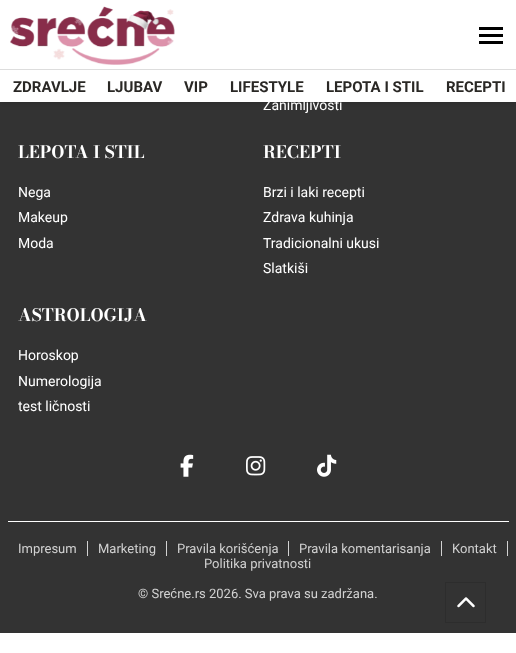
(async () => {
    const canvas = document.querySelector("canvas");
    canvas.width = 516;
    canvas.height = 653;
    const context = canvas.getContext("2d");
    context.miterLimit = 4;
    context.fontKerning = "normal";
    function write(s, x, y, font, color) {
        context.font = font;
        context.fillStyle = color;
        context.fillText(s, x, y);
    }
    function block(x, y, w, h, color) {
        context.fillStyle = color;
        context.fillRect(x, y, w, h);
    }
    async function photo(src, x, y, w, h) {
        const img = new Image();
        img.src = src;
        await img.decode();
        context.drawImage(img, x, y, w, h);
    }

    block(0, 0, 516, 653, "rgb(255, 255, 255)");
    block(0, 102, 516, 531, "rgb(51, 51, 51)");
    context.fillStyle = "rgba(0, 0, 0, 0.2)";
    context.filter = "blur(2px)";
    context.beginPath();
    context.rect(0, 0, 516, 102);
    context.fill();
    context.filter = "none";
    block(0, 0, 516, 102, "rgb(255, 255, 255)");
    block(0, 69, 516, 1, "rgb(221, 221, 221)");
    await photo("media/1.png", 10, 6, 165, 59);
    block(479, 27, 24, 3, "rgb(0, 0, 0)");
    block(479, 34, 24, 3, "rgb(0, 0, 0)");
    block(479, 41, 24, 3, "rgb(0, 0, 0)");
    write("ZDRAVLJE", 13, 92, "bold 15px Roboto", "rgb(42, 40, 37)");
    write("LJUBAV", 107, 92, "bold 15px Roboto", "rgb(42, 40, 37)");
    write("VIP", 184, 92, "bold 15px Roboto", "rgb(42, 40, 37)");
    write("LIFESTYLE", 230, 92, "bold 15px Roboto", "rgb(42, 40, 37)");
    write("LEPOTA I STIL", 326, 92, "bold 15px Roboto", "rgb(42, 40, 37)");
    write("RECEPTI", 446, 92, "bold 15px Roboto", "rgb(42, 40, 37)");
    write("Zanimljivosti", 263, 110, "14px Roboto", "rgb(255, 255, 255)");
    write("LEPOTA I STIL", 18, 158, "bold 17px Bodoni Moda", "rgb(255, 255, 255)");
    write("Nega", 18, 197, "14px Roboto", "rgb(255, 255, 255)");
    write("Makeup", 18, 222, "14px Roboto", "rgb(255, 255, 255)");
    write("Moda", 18, 248, "14px Roboto", "rgb(255, 255, 255)");
    write("RECEPTI", 263, 158, "bold 17px Bodoni Moda", "rgb(255, 255, 255)");
    write("Brzi i laki recepti", 263, 197, "14px Roboto", "rgb(255, 255, 255)");
    write("Zdrava kuhinja", 263, 222, "14px Roboto", "rgb(255, 255, 255)");
    write("Tradicionalni ukusi", 263, 248, "14px Roboto", "rgb(255, 255, 255)");
    write("Slatkiši", 263, 273, "14px Roboto", "rgb(255, 255, 255)");
    write("ASTROLOGIJA", 18, 321, "bold 17px Bodoni Moda", "rgb(255, 255, 255)");
    write("Horoskop", 18, 360, "14px Roboto", "rgb(255, 255, 255)");
    write("Numerologija", 18, 386, "14px Roboto", "rgb(255, 255, 255)");
    write("test ličnosti", 18, 411, "14px Roboto", "rgb(255, 255, 255)");
    await photo("media/2.png", 180, 454, 14, 23);
    await photo("media/3.png", 246, 456, 20, 20);
    await photo("media/4.png", 317, 454, 20, 23);
    block(8, 521, 501, 1, "rgb(255, 255, 255)");
    block(87, 541, 1, 15, "rgb(210, 210, 210)");
    write("Impresum", 18, 553, "13px Roboto", "rgb(210, 210, 210)");
    block(166, 541, 1, 15, "rgb(210, 210, 210)");
    write("Marketing", 98, 553, "13px Roboto", "rgb(210, 210, 210)");
    block(288, 541, 1, 15, "rgb(210, 210, 210)");
    write("Pravila korišćenja", 177, 553, "13px Roboto", "rgb(210, 210, 210)");
    block(441, 541, 1, 15, "rgb(210, 210, 210)");
    write("Pravila komentarisanja", 299, 553, "13px Roboto", "rgb(210, 210, 210)");
    block(507, 541, 1, 15, "rgb(210, 210, 210)");
    write("Kontakt", 452, 553, "13px Roboto", "rgb(210, 210, 210)");
    write("Politika privatnosti", 204, 568, "13px Roboto", "rgb(210, 210, 210)");
    write("© Srećne.rs 2026. Sva prava su zadržana.", 138, 598, "13px Roboto", "rgb(210, 210, 210)");
    context.strokeStyle = "rgb(45, 45, 45)";
    context.strokeRect(445.5, 582.5, 40, 40);
    await photo("media/5.png", 457, 597, 18, 11);
})();
